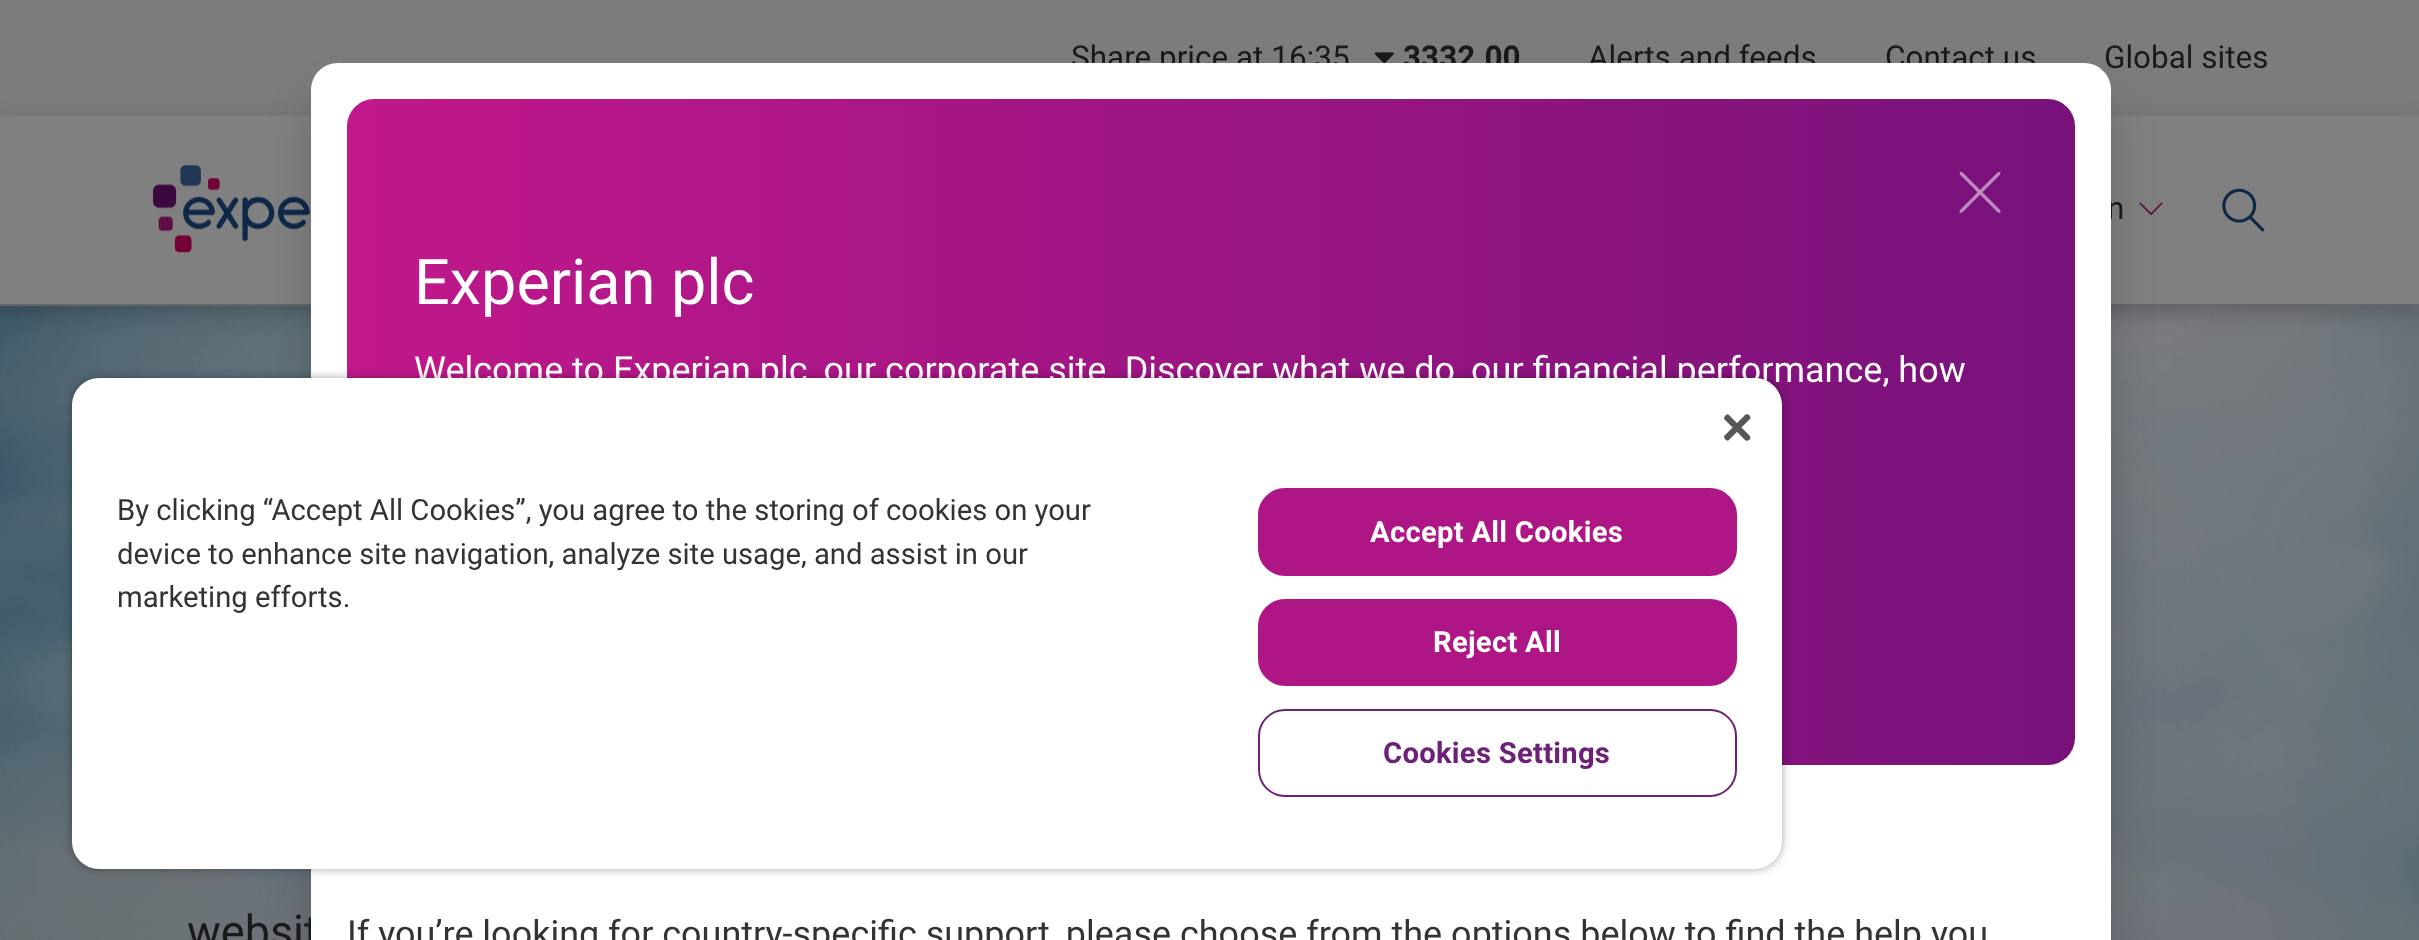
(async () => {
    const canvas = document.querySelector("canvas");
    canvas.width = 2419;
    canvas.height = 940;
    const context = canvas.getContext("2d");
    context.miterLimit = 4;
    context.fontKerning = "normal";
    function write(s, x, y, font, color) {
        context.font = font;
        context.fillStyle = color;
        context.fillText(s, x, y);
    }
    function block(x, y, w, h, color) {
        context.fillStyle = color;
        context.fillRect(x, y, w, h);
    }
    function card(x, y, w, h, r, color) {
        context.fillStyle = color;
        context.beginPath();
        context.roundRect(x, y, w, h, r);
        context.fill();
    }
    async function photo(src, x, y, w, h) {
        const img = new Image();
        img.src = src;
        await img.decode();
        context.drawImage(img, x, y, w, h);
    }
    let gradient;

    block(0, 0, 2419, 940, "rgb(128, 128, 128)");
    block(0, 0, 2419, 115, "rgb(124, 124, 125)");
    write("Share price at 16:35", 1071, 68, "31.5px Roboto", "rgb(26, 26, 26)");
    await photo("media/1.png", 1374, 52, 20, 11);
    write("3332.00", 1403, 68, "bold 31.5px Roboto", "rgb(26, 26, 26)");
    write("Alerts and feeds", 1588, 68, "31.5px Roboto", "rgb(26, 26, 26)");
    write("Contact us", 1885, 68, "31.5px Roboto", "rgb(26, 26, 26)");
    write("Global sites", 2104, 68, "31.5px Roboto", "rgb(26, 26, 26)");
    await photo("media/6.png", 0, 306, 2419, 634);
    context.save();
    context.beginPath();
    context.moveTo(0, 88);
    context.lineTo(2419, 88);
    context.lineTo(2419, 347);
    context.lineTo(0, 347);
    context.closePath();
    context.moveTo(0, 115);
    context.lineTo(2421, 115);
    context.lineTo(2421, 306);
    context.lineTo(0, 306);
    context.closePath();
    context.clip("evenodd");
    context.fillStyle = "rgba(0, 0, 0, 0.2)";
    context.filter = "blur(11px)";
    context.beginPath();
    context.rect(0, 122, 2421, 191);
    context.fill();
    context.filter = "none";
    context.restore();
    block(0, 304, 2419, 2, "rgb(100, 102, 105)");
    await photo("media/3.png", 153, 165, 157, 88);
    await photo("media/4.png", 2139, 202, 24, 14);
    context.fillStyle = "rgba(0, 0, 0, 0.17)";
    context.filter = "blur(22.5px)";
    context.beginPath();
    context.roundRect(311, 99, 1800, 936, 27);
    context.fill();
    context.filter = "none";
    write("n", 2107, 219, "31.5px Roboto", "rgb(26, 26, 26)");
    write("websit", 187, 947, "45px Roboto", "rgb(26, 26, 26)");
    context.fillStyle = "rgb(255, 255, 255)";
    context.beginPath();
    context.moveTo(338, 63);
    context.lineTo(2084, 63);
    context.bezierCurveTo(2099, 63, 2111, 75, 2111, 90);
    context.lineTo(2111, 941);
    context.lineTo(311, 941);
    context.lineTo(311, 90);
    context.bezierCurveTo(311, 75, 323, 63, 338, 63);
    context.closePath();
    context.fill();
    gradient = context.createLinearGradient(347, 432, 2075, 432);
    gradient.addColorStop(0, "rgb(193, 24, 139)");
    gradient.addColorStop(1, "rgb(119, 18, 123)");
    context.fillStyle = gradient;
    context.beginPath();
    context.roundRect(347, 99, 1728, 666, 27);
    context.fill();
    await photo("media/2.png", 1959, 171, 42, 42);
    write("Experian plc", 414, 304, "63px Roboto", "rgb(255, 255, 255)");
    write("Welcome to Experian plc, our corporate site. Discover what we do, our financial performance, how", 414, 382, "36px Roboto", "rgb(255, 255, 255)");
    write("If you’re looking for country-specific support, please choose from the options below to find the help you", 347, 946, "36px Roboto", "rgb(51, 51, 51)");
    await photo("media/5.png", 2222, 188, 43, 44);
    context.fillStyle = "rgba(0, 0, 0, 0.35)";
    context.filter = "blur(4.5px)";
    context.beginPath();
    context.roundRect(72, 378, 1710, 491, 27);
    context.fill();
    context.filter = "none";
    context.save();
    context.beginPath();
    context.roundRect(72, 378, 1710, 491, 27);
    context.clip();
    context.fillStyle = "rgba(0, 0, 0, 0.2)";
    context.filter = "blur(4.5px)";
    context.beginPath();
    context.rect(72, 378, 1710, 491);
    context.fill();
    context.filter = "none";
    context.restore();
    card(72, 378, 1710, 491, 27, "rgb(255, 255, 255)");
    await photo("media/7.png", 1724, 414, 27, 27);
    write("By clicking “Accept All Cookies”, you agree to the storing of cookies on your", 117, 520, "29.25px Roboto", "rgb(51, 51, 51)");
    write("device to enhance site navigation, analyze site usage, and assist in our", 117, 564, "29.25px Roboto", "rgb(51, 51, 51)");
    write("marketing efforts.", 117, 607, "29.25px Roboto", "rgb(51, 51, 51)");
    context.fillStyle = "rgb(175, 22, 133)";
    context.beginPath();
    context.roundRect(1259, 489, 477, 86, 26);
    context.fill();
    context.strokeStyle = "rgb(175, 22, 133)";
    context.lineWidth = 2;
    context.stroke();
    context.letterSpacing = "0.25px";
    write("Accept All Cookies", 1370, 542, "bold 29.25px Roboto", "rgb(255, 255, 255)");
    context.fillStyle = "rgb(175, 22, 133)";
    context.beginPath();
    context.roundRect(1259, 600, 477, 85, 26);
    context.fill();
    context.stroke();
    write("Reject All", 1433, 652, "bold 29.25px Roboto", "rgb(255, 255, 255)");
    context.beginPath();
    context.roundRect(1259, 710, 477, 86, 26);
    context.strokeStyle = "rgb(109, 32, 119)";
    context.stroke();
    write("Cookies Settings", 1383, 763, "bold 29.25px Roboto", "rgb(109, 32, 119)");
})();
